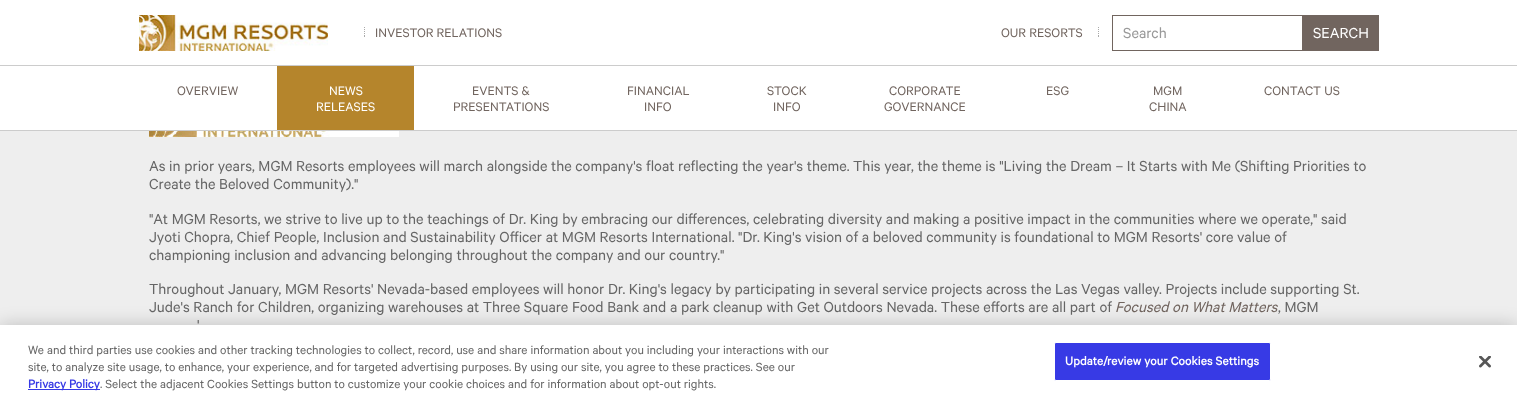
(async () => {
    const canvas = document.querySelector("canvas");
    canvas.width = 1517;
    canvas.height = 402;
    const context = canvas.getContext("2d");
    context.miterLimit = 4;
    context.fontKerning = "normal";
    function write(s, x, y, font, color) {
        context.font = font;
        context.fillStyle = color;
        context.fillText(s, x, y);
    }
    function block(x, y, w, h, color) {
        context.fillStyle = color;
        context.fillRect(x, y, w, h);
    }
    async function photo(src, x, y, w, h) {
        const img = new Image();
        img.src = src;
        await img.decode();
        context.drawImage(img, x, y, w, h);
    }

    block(0, 0, 1517, 402, "rgb(238, 238, 238)");
    block(0, 0, 1517, 130, "rgb(255, 255, 255)");
    await photo("media/1.png", 139, 15, 189, 36);
    await photo("media/2.png", 364, 27, 1, 10);
    write("INVESTOR RELATIONS", 375, 37, "12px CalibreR", "rgb(113, 101, 95)");
    write("OUR RESORTS", 1001, 37, "12px CalibreR", "rgb(113, 101, 95)");
    await photo("media/2.png", 1098, 27, 1, 10);
    context.strokeStyle = "rgb(113, 101, 95)";
    context.strokeRect(1112.5, 15.5, 190, 35);
    write("Search", 1123, 38, "14px CalibreR", "rgb(153, 153, 153)");
    block(1303, 15, 76, 36, "rgb(113, 101, 95)");
    write("SEARCH", 1313, 38, "14px CalibreR", "rgb(255, 255, 255)");
    block(0, 65, 1517, 1, "rgb(204, 204, 204)");
    block(0, 130, 1517, 1, "rgb(204, 204, 204)");
    write("OVERVIEW", 177, 95, "12px CalibreR", "rgb(113, 101, 95)");
    block(277, 66, 137, 64, "rgb(181, 133, 44)");
    write("NEWS", 329, 95, "12px CalibreR", "rgb(255, 255, 255)");
    write("RELEASES", 316, 111, "12px CalibreR", "rgb(255, 255, 255)");
    write("EVENTS &", 472, 95, "12px CalibreR", "rgb(113, 101, 95)");
    write("PRESENTATIONS", 453, 111, "12px CalibreR", "rgb(113, 101, 95)");
    write("FINANCIAL", 627, 95, "12px CalibreR", "rgb(113, 101, 95)");
    write("INFO", 644, 111, "12px CalibreR", "rgb(113, 101, 95)");
    write("STOCK", 767, 95, "12px CalibreR", "rgb(113, 101, 95)");
    write("INFO", 773, 111, "12px CalibreR", "rgb(113, 101, 95)");
    write("CORPORATE", 889, 95, "12px CalibreR", "rgb(113, 101, 95)");
    write("GOVERNANCE", 884, 111, "12px CalibreR", "rgb(113, 101, 95)");
    write("ESG", 1046, 95, "12px CalibreR", "rgb(113, 101, 95)");
    write("MGM", 1153, 95, "12px CalibreR", "rgb(113, 101, 95)");
    write("CHINA", 1149, 111, "12px CalibreR", "rgb(113, 101, 95)");
    write("CONTACT US", 1264, 95, "12px CalibreR", "rgb(113, 101, 95)");
    await photo("media/3.png", 149, 131, 250, 6);
    write("As in prior years, MGM Resorts employees will march alongside the company's float reflecting the year's theme. This year, the theme is \"Living the Dream – It Starts with Me (Shifting Priorities to", 149, 171, "14px CalibreR", "rgb(102, 102, 102)");
    write("Create the Beloved Community).\"", 149, 189, "14px CalibreR", "rgb(102, 102, 102)");
    write("\"At MGM Resorts, we strive to live up to the teachings of Dr. King by embracing our differences, celebrating diversity and making a positive impact in the communities where we operate,\" said", 149, 224, "14px CalibreR", "rgb(102, 102, 102)");
    write("Jyoti Chopra, Chief People, Inclusion and Sustainability Officer at MGM Resorts International. \"Dr. King's vision of a beloved community is foundational to MGM Resorts' core value of", 149, 242, "14px CalibreR", "rgb(102, 102, 102)");
    write("championing inclusion and advancing belonging throughout the company and our country.\"", 149, 260, "14px CalibreR", "rgb(102, 102, 102)");
    write("Throughout January, MGM Resorts' Nevada-based employees will honor Dr. King's legacy by participating in several service projects across the Las Vegas valley. Projects include supporting St.", 149, 294, "14px CalibreR", "rgb(102, 102, 102)");
    write("Jude's Ranch for Children, organizing warehouses at Three Square Food Bank and a park cleanup with Get Outdoors Nevada. These efforts are all part of", 149, 312, "14px CalibreR", "rgb(102, 102, 102)");
    write("Focused on What Matters", 1115, 312, "italic 14px CalibreR", "rgb(113, 101, 95)");
    write(", MGM", 1278, 312, "14px CalibreR", "rgb(102, 102, 102)");
    write("'", 197, 330, "14px CalibreR", "rgb(102, 102, 102)");
    context.fillStyle = "rgba(0, 0, 0, 0.2)";
    context.filter = "blur(9px)";
    context.beginPath();
    context.rect(0, 325, 1517, 77);
    context.fill();
    context.filter = "none";
    block(0, 325, 1517, 77, "rgb(255, 255, 255)");
    write("We and third parties use cookies and other tracking technologies to collect, record, use and share information about you including your interactions with our", 28, 354, "11.38px CalibreR", "rgb(102, 102, 102)");
    write("site, to analyze site usage, to enhance, your experience, and for targeted advertising purposes.", 28, 371, "11.38px CalibreR", "rgb(102, 102, 102)");
    write("By using our site, you agree to these practices. See our", 514, 371, "11.38px CalibreR", "rgb(102, 102, 102)");
    block(28, 389, 72, 1, "rgb(55, 58, 229)");
    write("Privacy Policy", 28, 388, "bold 11.38px CalibreR", "rgb(55, 58, 229)");
    write(". Select the adjacent Cookies Settings button to customize your cookie choices and for information about opt-out rights.", 100, 388, "11.38px CalibreR", "rgb(102, 102, 102)");
    context.fillStyle = "rgb(55, 58, 229)";
    context.beginPath();
    context.roundRect(1054.5, 342.5, 216, 38, 1.5);
    context.fill();
    context.strokeStyle = "rgb(255, 255, 255)";
    context.stroke();
    context.letterSpacing = "0.1px";
    write("Update/review your Cookies Settings", 1065, 365, "bold 11.38px CalibreR", "rgb(255, 255, 255)");
    await photo("media/4.png", 1479, 356, 12, 12);
})();
